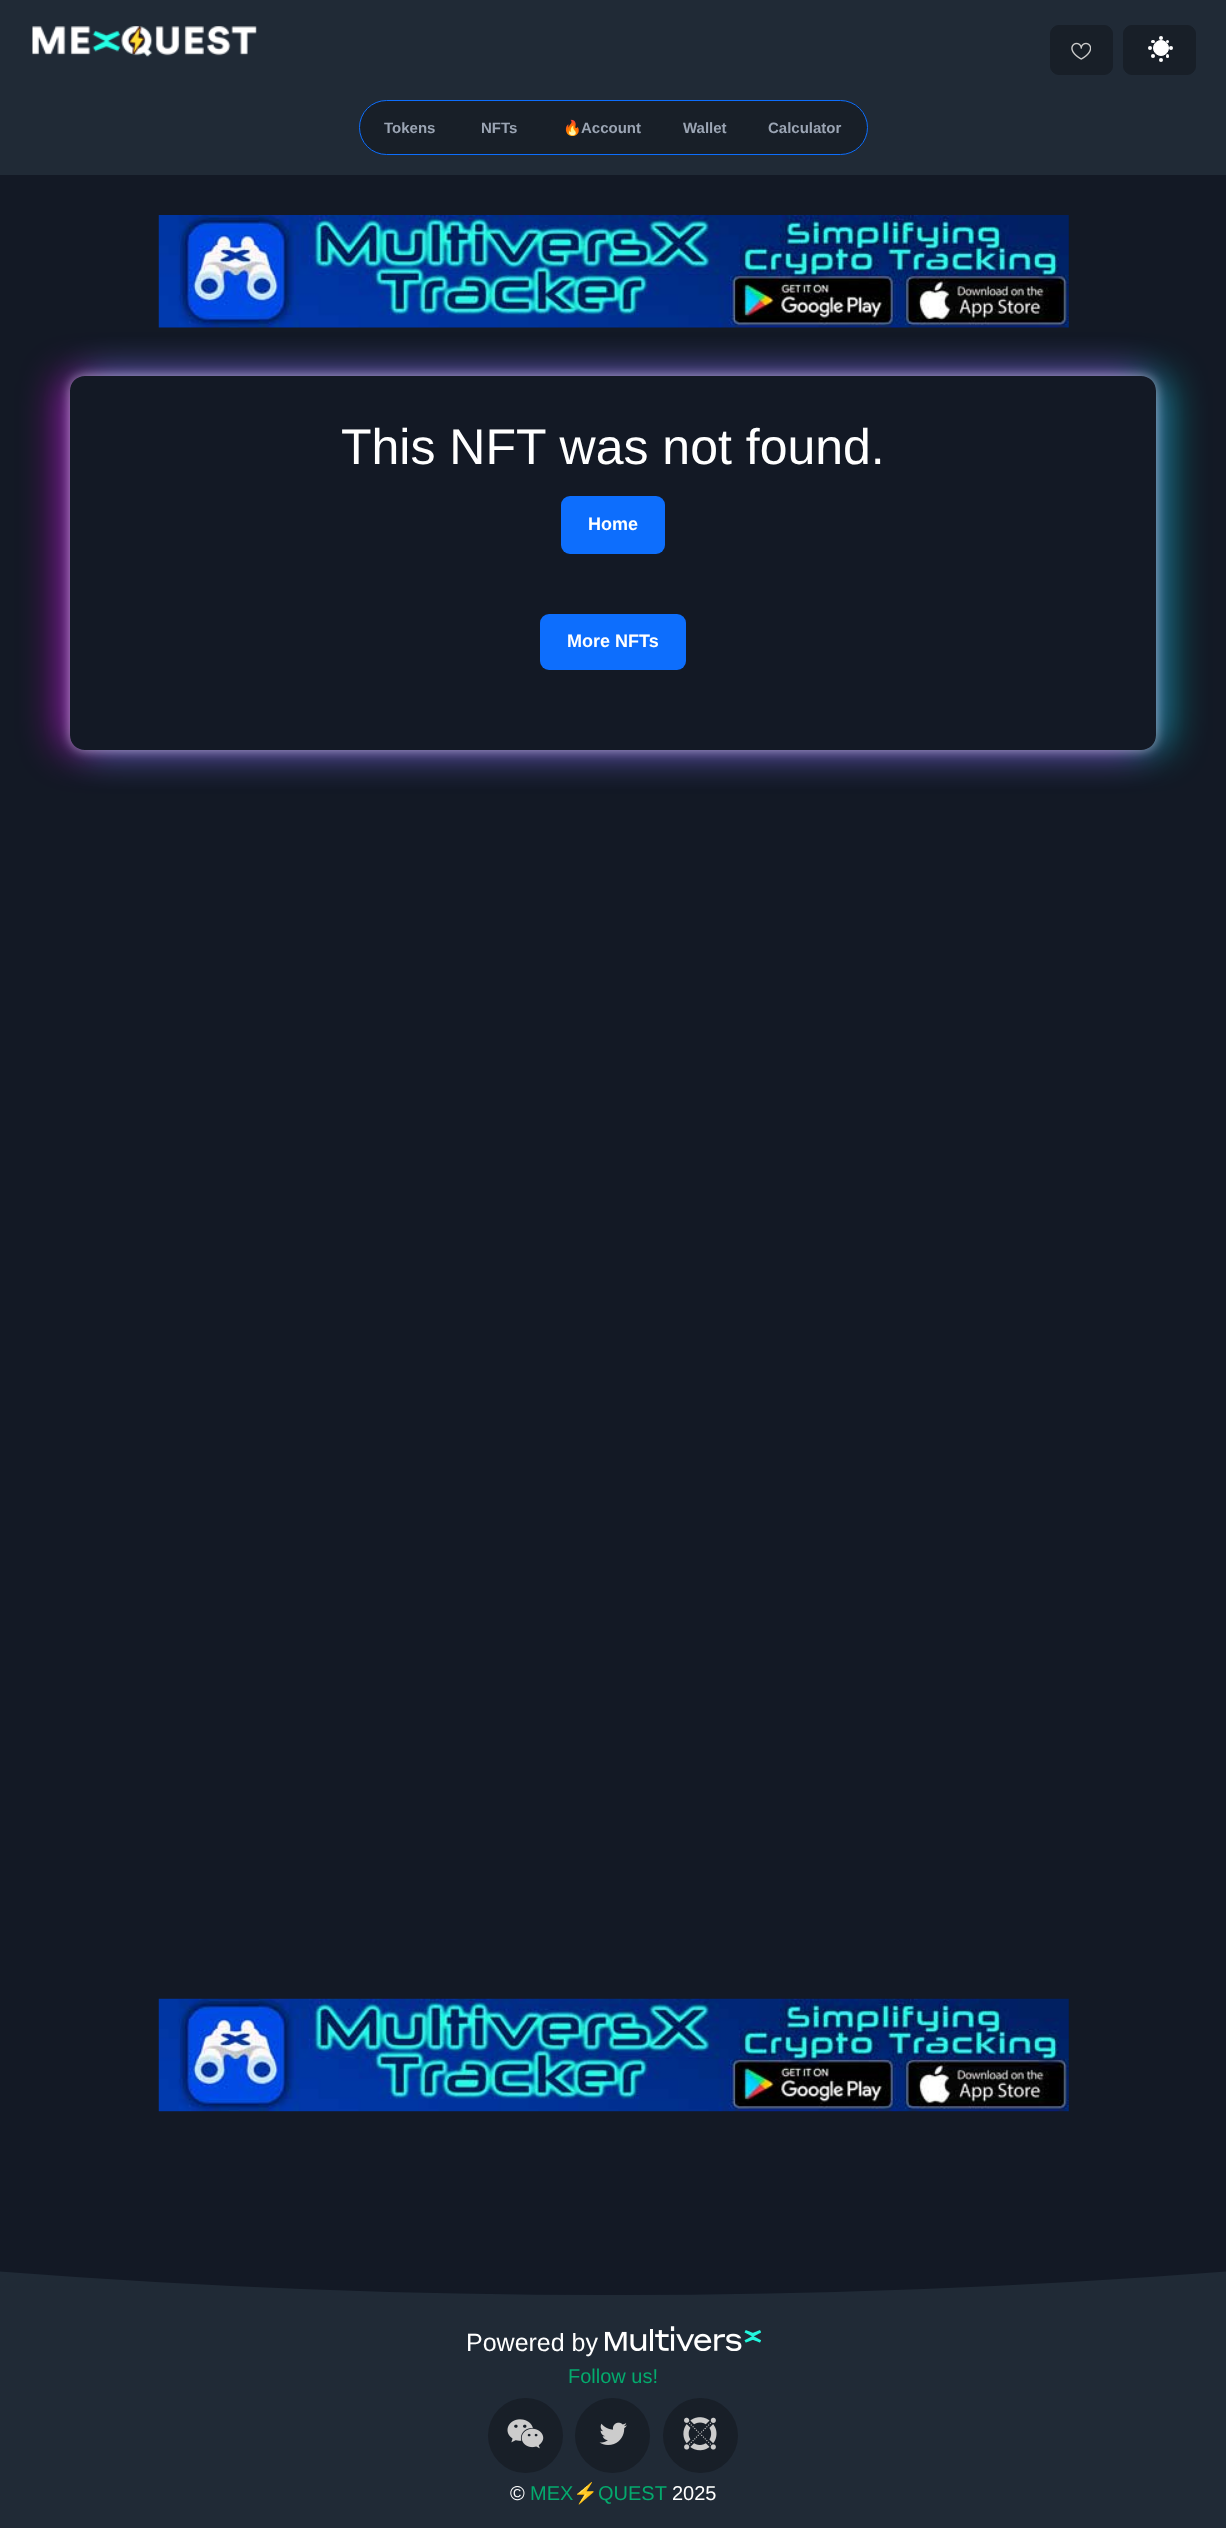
(async () => {
    const canvas = document.querySelector("canvas");
    canvas.width = 1226;
    canvas.height = 2528;
    const context = canvas.getContext("2d");
    context.miterLimit = 4;
    context.fontKerning = "normal";
    function write(s, x, y, font, color) {
        context.font = font;
        context.fillStyle = color;
        context.fillText(s, x, y);
    }
    function block(x, y, w, h, color) {
        context.fillStyle = color;
        context.fillRect(x, y, w, h);
    }
    function card(x, y, w, h, r, color) {
        context.fillStyle = color;
        context.beginPath();
        context.roundRect(x, y, w, h, r);
        context.fill();
    }
    async function photo(src, x, y, w, h) {
        const img = new Image();
        img.src = src;
        await img.decode();
        context.drawImage(img, x, y, w, h);
    }

    block(0, 0, 1226, 2528, "rgb(19, 25, 37)");
    block(0, 0, 1226, 175, "rgb(32, 42, 54)");
    await photo("media/1.png", 32, 26, 225, 31);
    context.fillStyle = "rgb(24, 31, 40)";
    context.beginPath();
    context.roundRect(1050.5, 25.5, 62, 49, 8.5);
    context.fill();
    context.strokeStyle = "rgb(24, 31, 40)";
    context.stroke();
    await photo("media/2.png", 1071, 42, 20, 18);
    context.beginPath();
    context.roundRect(1123.5, 25.5, 72, 49, 8.5);
    context.fill();
    context.stroke();
    context.fillStyle = "rgb(255, 255, 255)";
    context.beginPath();
    context.arc(1167.5, 41.5, 1.5, 0, Math.PI * 2);
    context.fill();
    context.beginPath();
    context.arc(1153, 56, 2, 0, Math.PI * 2);
    context.fill();
    card(1166, 54, 3, 4, 1.5, "rgb(255, 255, 255)");
    card(1151, 40, 4, 3, 1.5, "rgb(255, 255, 255)");
    context.beginPath();
    context.arc(1161, 60, 2, 0, Math.PI * 2);
    context.fill();
    context.beginPath();
    context.arc(1161, 38, 2, 0, Math.PI * 2);
    context.fill();
    context.beginPath();
    context.arc(1171, 48, 2, 0, Math.PI * 2);
    context.fill();
    context.beginPath();
    context.arc(1150, 48, 2, 0, Math.PI * 2);
    context.fill();
    context.beginPath();
    context.arc(1161, 48, 7.5, 0, Math.PI * 2);
    context.fill();
    context.strokeStyle = "rgb(255, 255, 255)";
    context.stroke();
    context.fillStyle = "rgb(24, 31, 40)";
    context.beginPath();
    context.roundRect(359.5, 100.5, 508, 54, 27);
    context.fill();
    context.strokeStyle = "rgb(13, 110, 253)";
    context.stroke();
    write("Tokens", 384, 133, "bold 15px Liberation Sans", "rgb(155, 165, 180)");
    write("NFTs", 481, 133, "bold 15px Liberation Sans", "rgb(155, 165, 180)");
    write("🔥", 563, 133, "bold 15px Noto Color Emoji", "rgb(155, 165, 180)");
    write("Account", 581, 133, "bold 15px Liberation Sans", "rgb(155, 165, 180)");
    write("Wallet", 683, 133, "bold 15px Liberation Sans", "rgb(155, 165, 180)");
    write("Calculator", 768, 133, "bold 15px Liberation Sans", "rgb(155, 165, 180)");
    await photo("media/3.png", 158, 215, 911, 113);
    context.save();
    context.beginPath();
    context.moveTo(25, 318);
    context.lineTo(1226, 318);
    context.lineTo(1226, 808);
    context.lineTo(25, 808);
    context.closePath();
    context.moveTo(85, 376);
    context.lineTo(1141, 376);
    context.bezierCurveTo(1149.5, 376, 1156, 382.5, 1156, 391);
    context.lineTo(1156, 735);
    context.bezierCurveTo(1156, 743.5, 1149.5, 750, 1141, 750);
    context.lineTo(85, 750);
    context.bezierCurveTo(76.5, 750, 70, 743.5, 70, 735);
    context.lineTo(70, 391);
    context.bezierCurveTo(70, 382.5, 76.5, 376, 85, 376);
    context.closePath();
    context.clip("evenodd");
    context.fillStyle = "rgba(0, 255, 255, 0.5)";
    context.filter = "blur(19px)";
    context.beginPath();
    context.roundRect(83, 376, 1086, 374, 15);
    context.fill();
    context.filter = "none";
    context.restore();
    context.save();
    context.beginPath();
    context.moveTo(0, 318);
    context.lineTo(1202, 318);
    context.lineTo(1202, 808);
    context.lineTo(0, 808);
    context.closePath();
    context.moveTo(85, 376);
    context.lineTo(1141, 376);
    context.bezierCurveTo(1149.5, 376, 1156, 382.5, 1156, 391);
    context.lineTo(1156, 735);
    context.bezierCurveTo(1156, 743.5, 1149.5, 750, 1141, 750);
    context.lineTo(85, 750);
    context.bezierCurveTo(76.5, 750, 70, 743.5, 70, 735);
    context.lineTo(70, 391);
    context.bezierCurveTo(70, 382.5, 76.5, 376, 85, 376);
    context.closePath();
    context.clip("evenodd");
    context.fillStyle = "rgba(255, 0, 255, 0.5)";
    context.filter = "blur(19px)";
    context.beginPath();
    context.roundRect(58, 376, 1086, 374, 15);
    context.fill();
    context.filter = "none";
    context.restore();
    context.save();
    context.beginPath();
    context.moveTo(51, 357);
    context.lineTo(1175, 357);
    context.lineTo(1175, 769);
    context.lineTo(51, 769);
    context.closePath();
    context.moveTo(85, 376);
    context.lineTo(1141, 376);
    context.bezierCurveTo(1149.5, 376, 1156, 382.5, 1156, 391);
    context.lineTo(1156, 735);
    context.bezierCurveTo(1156, 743.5, 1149.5, 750, 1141, 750);
    context.lineTo(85, 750);
    context.bezierCurveTo(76.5, 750, 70, 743.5, 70, 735);
    context.lineTo(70, 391);
    context.bezierCurveTo(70, 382.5, 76.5, 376, 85, 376);
    context.closePath();
    context.clip("evenodd");
    context.fillStyle = "rgba(255, 255, 255, 0.5)";
    context.filter = "blur(6px)";
    context.beginPath();
    context.roundRect(70, 376, 1086, 374, 15);
    context.fill();
    context.filter = "none";
    context.restore();
    write("This NFT was not found.", 341, 464, "50px Liberation Sans", "rgb(255, 255, 255)");
    card(561, 496, 104, 58, 9, "rgb(13, 110, 253)");
    write("Home", 588, 530, "bold 18px Liberation Sans", "rgb(255, 255, 255)");
    card(540, 614, 146, 56, 9, "rgb(13, 110, 253)");
    write("More NFTs", 567, 647, "bold 18px Liberation Sans", "rgb(255, 255, 255)");
    await photo("media/4.png", 158, 1998, 911, 114);
    context.beginPath();
    context.arc(613.5, -5675.5, 14220, 0, Math.PI * 2);
    context.strokeStyle = "rgb(32, 42, 54)";
    context.lineWidth = 12499;
    context.stroke();
    write("Powered by", 466, 2351, "25px Liberation Sans", "rgb(255, 255, 255)");
    await photo("media/5.png", 605, 2326, 156, 25);
    write("Follow us!", 568, 2383, "20px Liberation Sans", "rgb(4, 170, 109)");
    context.fillStyle = "rgb(24, 31, 40)";
    context.beginPath();
    context.arc(525.5, 2435.5, 37.5, 0, Math.PI * 2);
    context.fill();
    await photo("media/6.png", 507, 2419, 37, 30);
    context.beginPath();
    context.arc(612.5, 2435.5, 37.5, 0, Math.PI * 2);
    context.fill();
    await photo("media/7.png", 599, 2422, 28, 23);
    context.beginPath();
    context.arc(700.5, 2435.5, 37.5, 0, Math.PI * 2);
    context.fill();
    await photo("media/8.png", 683, 2417, 34, 34);
    write("©", 510, 2500, "20px Liberation Sans", "rgb(255, 255, 255)");
    write("MEX", 530, 2500, "20px Liberation Sans", "rgb(4, 170, 109)");
    write("⚡", 573, 2500, "20px Noto Color Emoji", "rgb(4, 170, 109)");
    write("QUEST", 598, 2500, "20px Liberation Sans", "rgb(4, 170, 109)");
    write("2025", 672, 2500, "20px Liberation Sans", "rgb(255, 255, 255)");
})();
